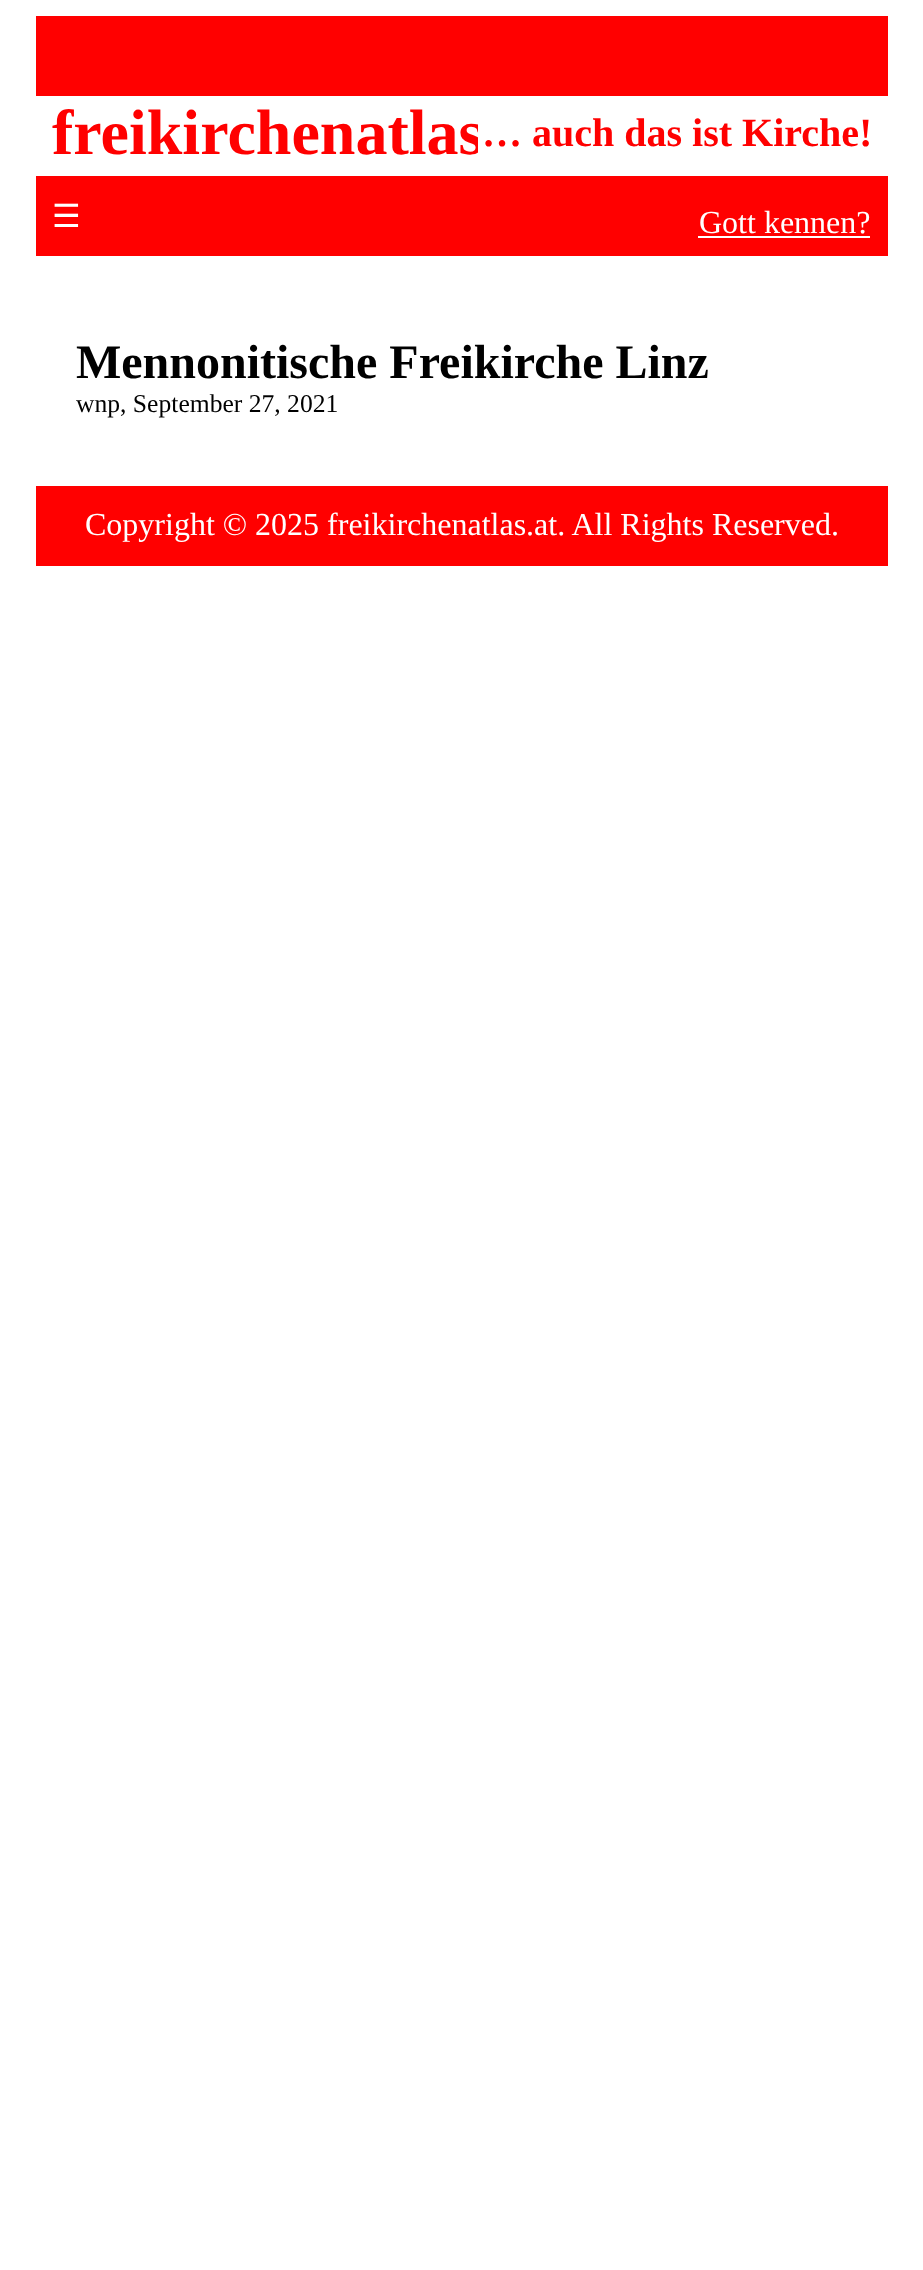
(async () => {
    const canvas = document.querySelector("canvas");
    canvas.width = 923;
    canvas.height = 2270;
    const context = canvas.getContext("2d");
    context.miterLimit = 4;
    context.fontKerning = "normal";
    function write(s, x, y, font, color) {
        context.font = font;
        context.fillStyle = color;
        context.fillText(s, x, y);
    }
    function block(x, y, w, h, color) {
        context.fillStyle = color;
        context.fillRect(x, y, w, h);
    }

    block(0, 0, 923, 2270, "rgb(255, 255, 255)");
    block(36, 16, 852, 80, "rgb(255, 0, 0)");
    write("freikirchenatlas", 52, 154, "bold 64px Liberation Serif", "rgb(255, 0, 0)");
    block(478, 124, 4, 29, "rgb(255, 255, 255)");
    write("… auch das ist Kirche!", 482, 146, "bold 40px Liberation Serif", "rgb(255, 0, 0)");
    block(36, 176, 852, 80, "rgb(255, 0, 0)");
    write("☰", 52, 227, "32px DejaVu Sans", "rgb(255, 255, 255)");
    write("Gott kennen?", 699, 233, "32px Liberation Serif", "rgb(255, 255, 255)");
    block(698, 236, 172, 2, "rgb(255, 255, 255)");
    write("Mennonitische Freikirche Linz", 76, 378, "bold 48px Liberation Serif", "rgb(0, 0, 0)");
    write("wnp, September 27, 2021", 76, 412, "25.6px Liberation Serif", "rgb(0, 0, 0)");
    block(36, 486, 852, 80, "rgb(255, 0, 0)");
    write("Copyright © 2025 freikirchenatlas.at. All Rights Reserved.", 85, 535, "32px Liberation Serif", "rgb(255, 255, 255)");
})();
